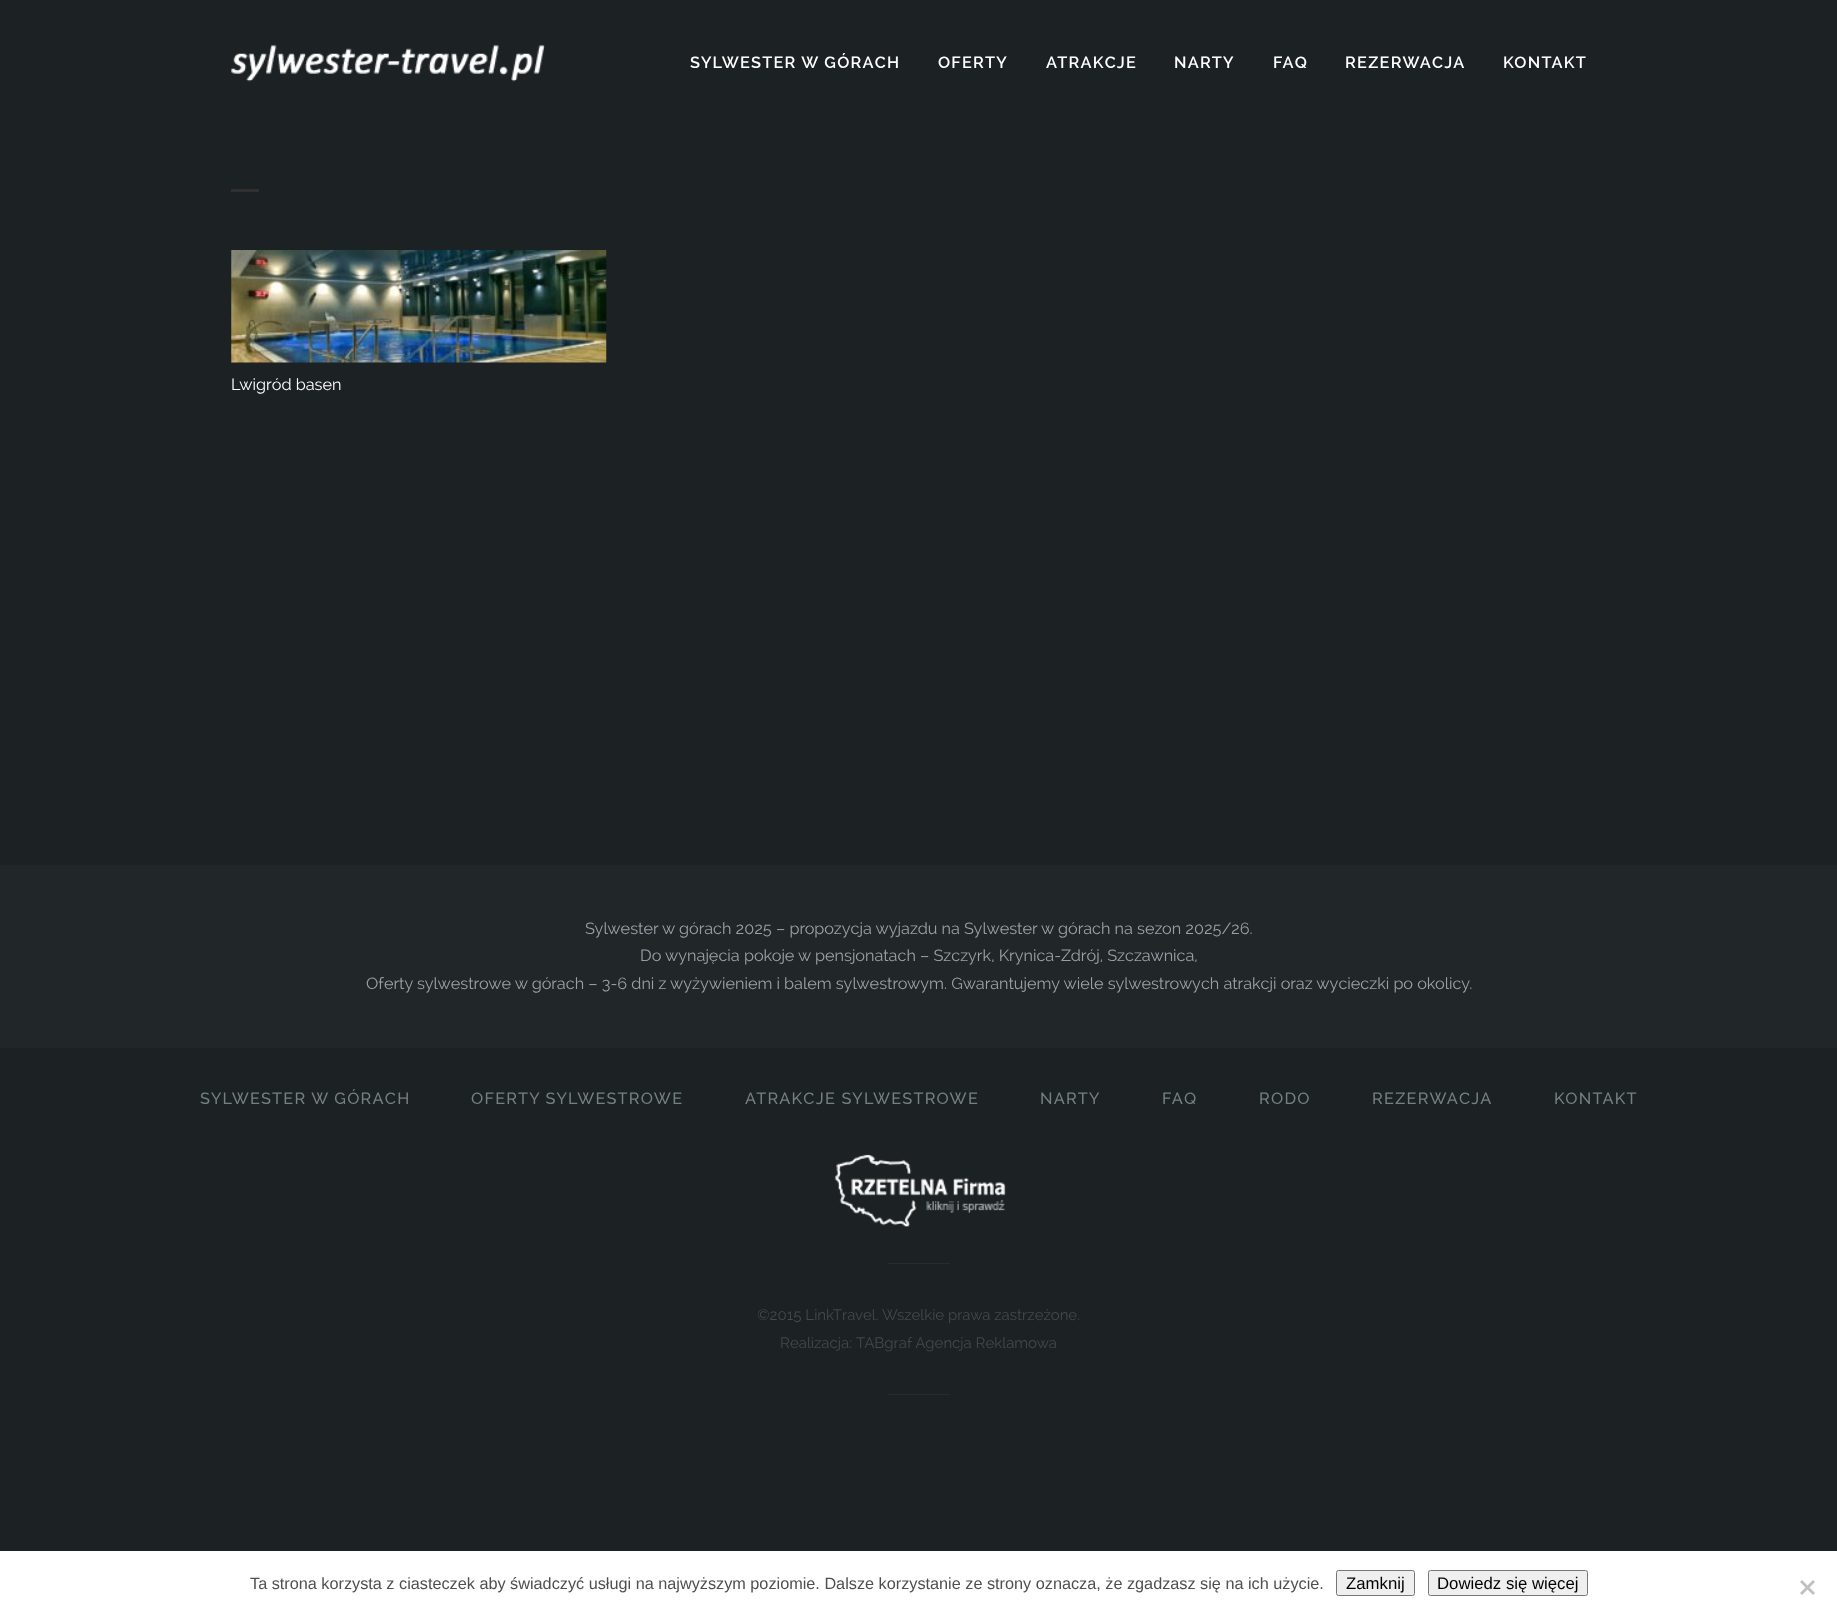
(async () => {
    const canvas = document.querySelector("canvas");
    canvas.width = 1837;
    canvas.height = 1622;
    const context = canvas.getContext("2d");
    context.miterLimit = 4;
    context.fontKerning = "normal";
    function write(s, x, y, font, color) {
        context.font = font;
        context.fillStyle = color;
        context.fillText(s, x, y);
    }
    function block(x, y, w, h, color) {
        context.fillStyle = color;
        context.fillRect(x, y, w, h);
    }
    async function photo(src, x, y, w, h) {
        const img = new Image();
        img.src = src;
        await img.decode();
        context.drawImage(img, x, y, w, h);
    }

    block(0, 0, 1837, 1622, "rgb(28, 33, 35)");
    await photo("media/1.png", 231, 44, 314, 38);
    context.letterSpacing = "1.25px";
    write("SYLWESTER W GÓRACH", 690, 68, "600 16.25px Raleway", "rgb(255, 255, 255)");
    write("OFERTY", 938, 68, "600 16.25px Raleway", "rgb(255, 255, 255)");
    write("ATRAKCJE", 1046, 68, "600 16.25px Raleway", "rgb(255, 255, 255)");
    write("NARTY", 1174, 68, "600 16.25px Raleway", "rgb(255, 255, 255)");
    write("FAQ", 1273, 68, "600 16.25px Raleway", "rgb(255, 255, 255)");
    write("REZERWACJA", 1345, 68, "600 16.25px Raleway", "rgb(255, 255, 255)");
    write("KONTAKT", 1503, 68, "600 16.25px Raleway", "rgb(255, 255, 255)");
    block(231, 189, 28, 3, "rgb(48, 48, 48)");
    await photo("media/2.png", 231, 250, 376, 113);
    context.letterSpacing = "0px";
    write("Lwigród basen", 231, 390, "16.25px Raleway", "rgb(255, 255, 255)");
    block(0, 865, 1837, 183, "rgb(33, 39, 41)");
    write("Sylwester w górach 2025 – propozycja wyjazdu na Sylwester w górach na sezon 2025/26.", 585, 934, "16.25px Raleway", "rgb(155, 160, 167)");
    write("Do wynajęcia pokoje w pensjonatach – Szczyrk, Krynica-Zdrój, Szczawnica,", 640, 961, "16.25px Raleway", "rgb(155, 160, 167)");
    write("Oferty sylwestrowe w górach – 3-6 dni z wyżywieniem i balem sylwestrowym. Gwarantujemy wiele sylwestrowych atrakcji oraz wycieczki po okolicy.", 366, 989, "16.25px Raleway", "rgb(155, 160, 167)");
    context.letterSpacing = "1.25px";
    write("SYLWESTER W GÓRACH", 200, 1104, "500 16.25px Raleway", "rgb(116, 128, 132)");
    write("OFERTY SYLWESTROWE", 471, 1104, "500 16.25px Raleway", "rgb(116, 128, 132)");
    write("ATRAKCJE SYLWESTROWE", 745, 1104, "500 16.25px Raleway", "rgb(116, 128, 132)");
    write("NARTY", 1040, 1104, "500 16.25px Raleway", "rgb(116, 128, 132)");
    write("FAQ", 1162, 1104, "500 16.25px Raleway", "rgb(116, 128, 132)");
    write("RODO", 1259, 1104, "500 16.25px Raleway", "rgb(116, 128, 132)");
    write("REZERWACJA", 1372, 1104, "500 16.25px Raleway", "rgb(116, 128, 132)");
    write("KONTAKT", 1554, 1104, "500 16.25px Raleway", "rgb(116, 128, 132)");
    await photo("media/3.png", 834, 1154, 172, 73);
    block(888, 1263, 62, 1, "rgb(40, 44, 46)");
    context.letterSpacing = "0px";
    write("©2015 LinkTravel. Wszelkie prawa zastrzeżone.", 757, 1320, "15px Raleway", "rgb(65, 74, 77)");
    write("Realizacja:", 780, 1348, "15px Raleway", "rgb(65, 74, 77)");
    write("TABgraf Agencja Reklamowa", 856, 1348, "15px Raleway", "rgb(65, 74, 77)");
    block(888, 1394, 62, 1, "rgb(40, 44, 46)");
    block(0, 1551, 1837, 71, "rgb(255, 255, 255)");
    write("Ta strona korzysta z ciasteczek aby świadczyć usługi na najwyższym poziomie. Dalsze korzystanie ze strony oznacza, że zgadzasz się na ich użycie.", 250, 1589, "16.25px Liberation Sans", "rgb(79, 79, 79)");
    context.fillStyle = "rgb(239, 239, 239)";
    context.beginPath();
    context.roundRect(1336.5, 1570.5, 78, 25, 2);
    context.fill();
    context.strokeStyle = "rgb(118, 118, 118)";
    context.stroke();
    write("Zamknij", 1346, 1589, "16.75px Liberation Sans", "rgb(0, 0, 0)");
    context.fillStyle = "rgb(239, 239, 239)";
    context.beginPath();
    context.roundRect(1428.5, 1570.5, 159, 25, 2);
    context.fill();
    context.stroke();
    write("Dowiedz się więcej", 1437, 1589, "16.75px Liberation Sans", "rgb(0, 0, 0)");
    context.fillStyle = "rgb(192, 192, 192)";
    context.beginPath();
    context.moveTo(1813, 1580);
    context.lineTo(1815, 1582);
    context.lineTo(1802, 1595);
    context.lineTo(1800, 1593);
    context.closePath();
    context.fill();
    context.beginPath();
    context.moveTo(1800, 1582);
    context.lineTo(1802, 1580);
    context.lineTo(1815, 1593);
    context.lineTo(1813, 1595);
    context.closePath();
    context.fill();
})();
